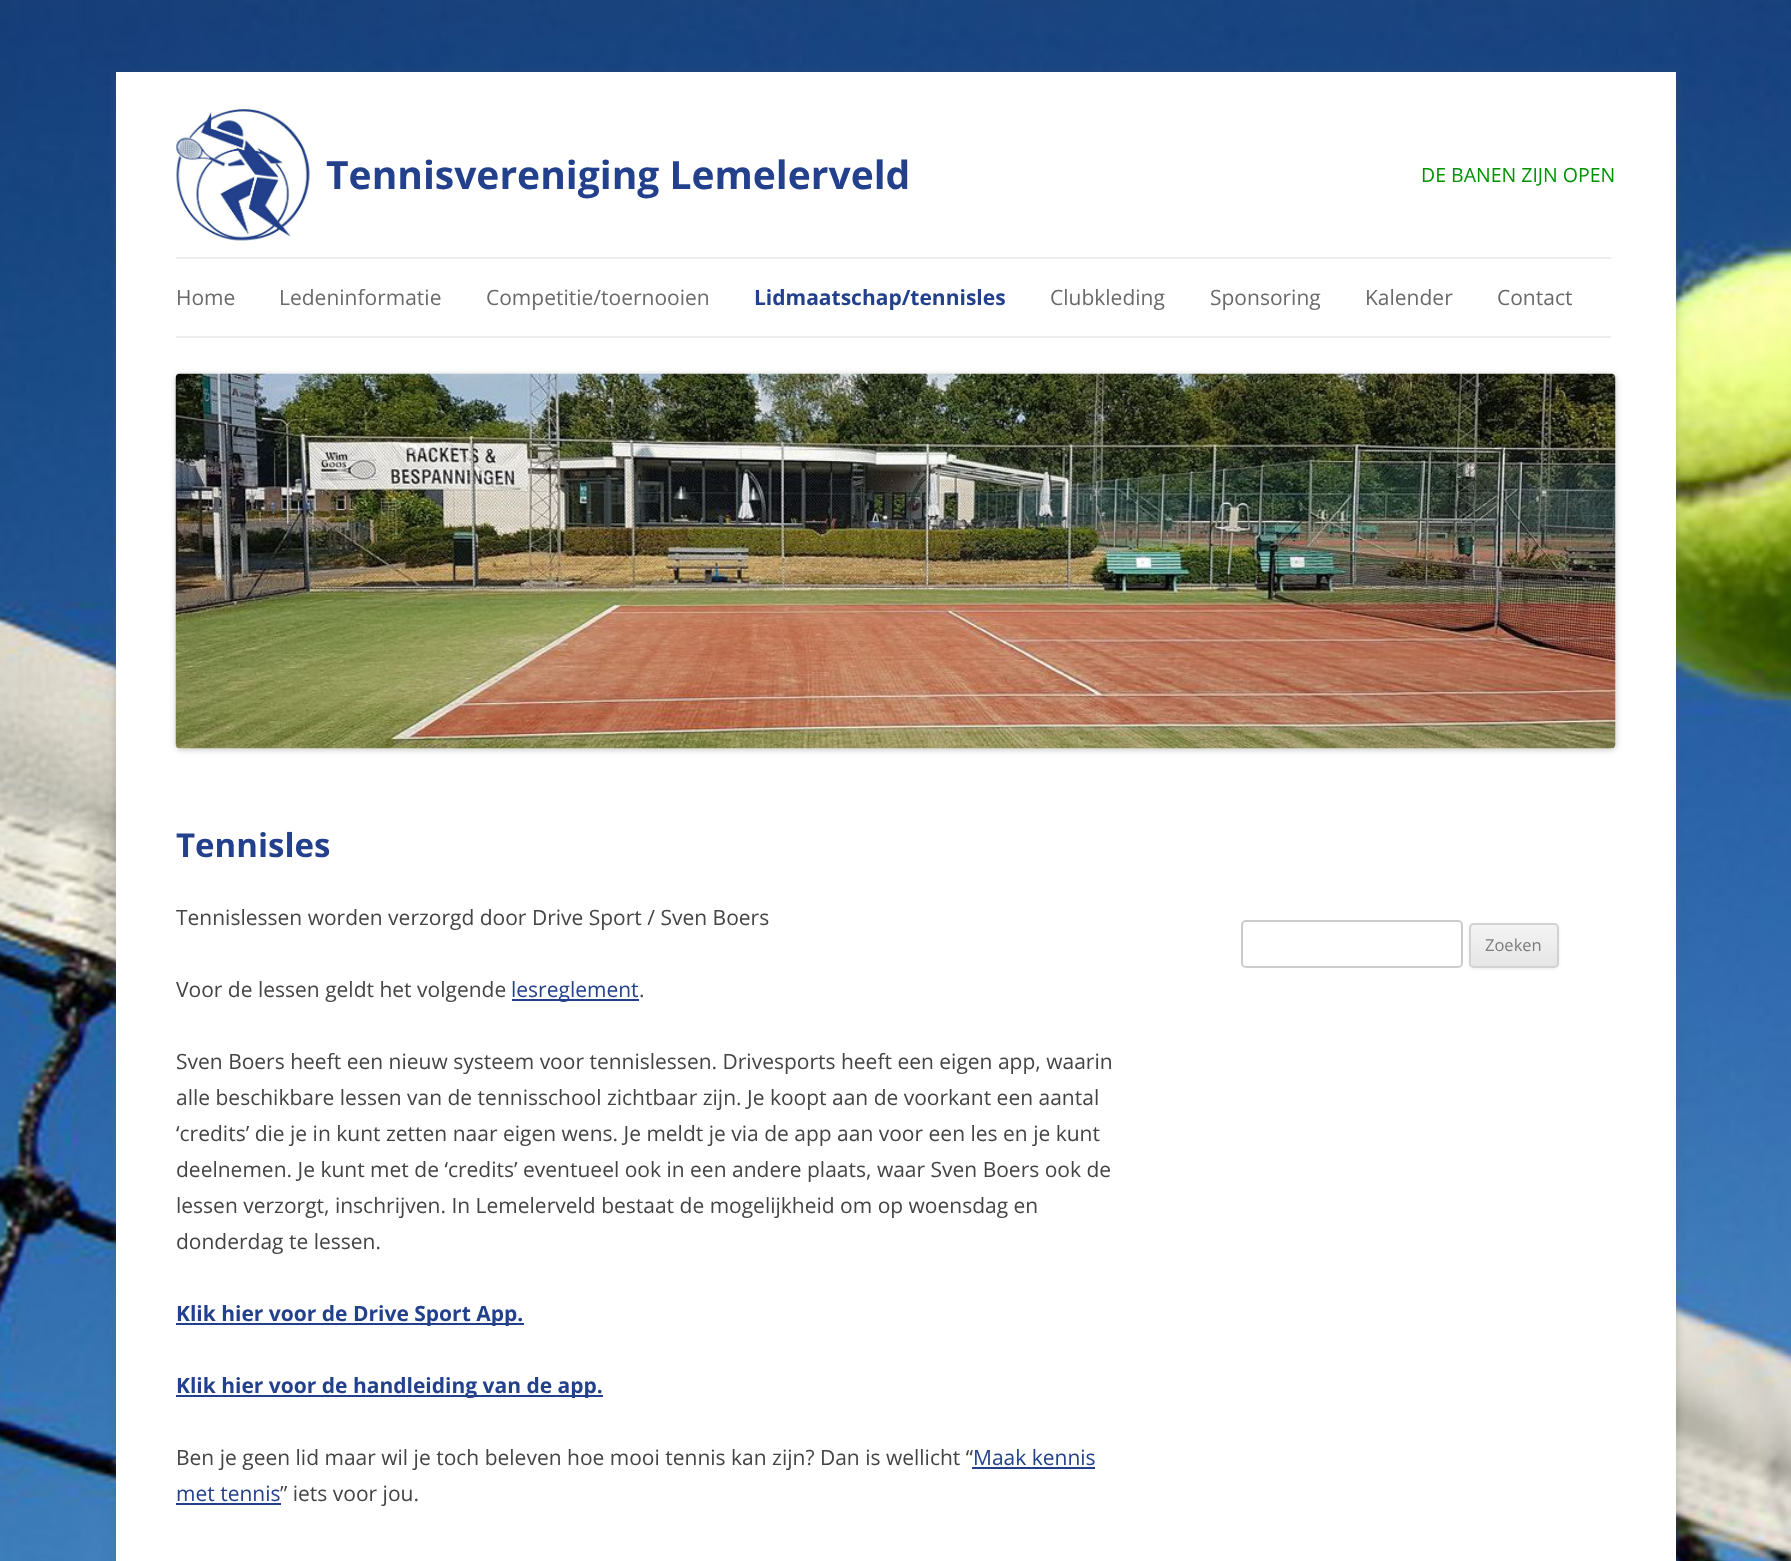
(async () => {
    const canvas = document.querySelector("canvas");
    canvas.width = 1791;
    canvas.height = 1561;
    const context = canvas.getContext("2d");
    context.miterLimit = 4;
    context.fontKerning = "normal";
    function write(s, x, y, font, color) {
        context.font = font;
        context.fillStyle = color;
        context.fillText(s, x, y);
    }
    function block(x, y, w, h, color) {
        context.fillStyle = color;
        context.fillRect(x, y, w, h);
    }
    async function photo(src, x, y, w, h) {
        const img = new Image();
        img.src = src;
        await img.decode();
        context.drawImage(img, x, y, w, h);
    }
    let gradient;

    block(0, 0, 1791, 1561, "rgb(255, 255, 255)");
    await photo("media/1.png", 0, 0, 1791, 1561);
    context.fillStyle = "rgba(100, 100, 100, 0.3)";
    context.filter = "blur(4.5px)";
    context.beginPath();
    context.rect(116, 75, 1560, 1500);
    context.fill();
    context.filter = "none";
    block(116, 72, 1560, 1489, "rgb(255, 255, 255)");
    await photo("media/2.png", 176, 108, 134, 133);
    write("Tennisvereniging Lemelerveld", 326, 189, "bold 39px Open Sans", "rgb(35, 64, 140)");
    write("DE BANEN ZIJN OPEN", 1421, 182, "19.5px Open Sans", "rgb(0, 146, 3)");
    block(176, 257, 1435, 2, "rgb(237, 237, 237)");
    block(176, 336, 1435, 2, "rgb(237, 237, 237)");
    write("Home", 176, 305, "21px Open Sans", "rgb(106, 106, 106)");
    write("Ledeninformatie", 279, 305, "21px Open Sans", "rgb(106, 106, 106)");
    write("Competitie/toernooien", 486, 305, "21px Open Sans", "rgb(106, 106, 106)");
    write("Lidmaatschap/tennisles", 754, 305, "bold 21px Open Sans", "rgb(35, 64, 140)");
    write("Clubkleding", 1050, 305, "21px Open Sans", "rgb(106, 106, 106)");
    write("Sponsoring", 1210, 305, "21px Open Sans", "rgb(106, 106, 106)");
    write("Kalender", 1365, 305, "21px Open Sans", "rgb(106, 106, 106)");
    write("Contact", 1497, 305, "21px Open Sans", "rgb(106, 106, 106)");
    context.fillStyle = "rgba(0, 0, 0, 0.2)";
    context.filter = "blur(3px)";
    context.beginPath();
    context.roundRect(176, 375, 1440, 375, 5);
    context.fill();
    context.filter = "none";
    await photo("media/3.png", 175, 373, 1441, 376);
    write("Tennisles", 176, 857, "bold 33px Open Sans", "rgb(35, 64, 140)");
    write("Tennislessen worden verzorgd door Drive Sport / Sven Boers", 176, 925, "21px Open Sans", "rgb(68, 68, 68)");
    write("Voor de lessen geldt het volgende", 176, 997, "21px Open Sans", "rgb(68, 68, 68)");
    block(512, 999, 127, 2, "rgb(35, 64, 140)");
    write("lesreglement", 511, 997, "21px Open Sans", "rgb(35, 64, 140)");
    write(".", 639, 997, "21px Open Sans", "rgb(68, 68, 68)");
    write("Sven Boers heeft een nieuw systeem voor tennislessen. Drivesports heeft een eigen app, waarin", 176, 1069, "21px Open Sans", "rgb(68, 68, 68)");
    write("alle beschikbare lessen van de tennisschool zichtbaar zijn. Je koopt aan de voorkant een aantal", 176, 1105, "21px Open Sans", "rgb(68, 68, 68)");
    write("‘credits’ die je in kunt zetten naar eigen wens. Je meldt je via de app aan voor een les en je kunt", 176, 1141, "21px Open Sans", "rgb(68, 68, 68)");
    write("deelnemen. Je kunt met de ‘credits’ eventueel ook in een andere plaats, waar Sven Boers ook de", 176, 1177, "21px Open Sans", "rgb(68, 68, 68)");
    write("lessen verzorgt, inschrijven. In Lemelerveld bestaat de mogelijkheid om op woensdag en", 176, 1213, "21px Open Sans", "rgb(68, 68, 68)");
    write("donderdag te lessen.", 176, 1249, "21px Open Sans", "rgb(68, 68, 68)");
    block(176, 1323, 348, 2, "rgb(35, 64, 140)");
    write("Klik hier voor de Drive Sport App.", 176, 1321, "bold 21px Open Sans", "rgb(35, 64, 140)");
    block(176, 1395, 427, 2, "rgb(35, 64, 140)");
    write("Klik hier voor de handleiding van de app.", 176, 1393, "bold 21px Open Sans", "rgb(35, 64, 140)");
    write("Ben je geen lid maar wil je toch beleven hoe mooi tennis kan zijn? Dan is wellicht “", 176, 1465, "21px Open Sans", "rgb(68, 68, 68)");
    write("Maak kennis", 973, 1465, "21px Open Sans", "rgb(35, 64, 140)");
    block(972, 1467, 123, 2, "rgb(35, 64, 140)");
    write("met tennis", 176, 1501, "21px Open Sans", "rgb(35, 64, 140)");
    block(176, 1503, 105, 2, "rgb(35, 64, 140)");
    write("” iets voor jou.", 280, 1501, "21px Open Sans", "rgb(68, 68, 68)");
    context.beginPath();
    context.roundRect(1242, 921, 220, 46, 4);
    context.strokeStyle = "rgb(204, 204, 204)";
    context.lineWidth = 2;
    context.stroke();
    context.fillStyle = "rgba(64, 64, 64, 0.1)";
    context.filter = "blur(1.5px)";
    context.beginPath();
    context.roundRect(1469, 924, 90, 45, 5);
    context.fill();
    context.filter = "none";
    context.save();
    context.beginPath();
    context.roundRect(1469, 923, 90, 45, 5);
    context.clip();
    gradient = context.createLinearGradient(1514, 924, 1514, 966);
    gradient.addColorStop(0, "rgb(244, 244, 244)");
    gradient.addColorStop(1, "rgb(230, 230, 230)");
    context.fillStyle = gradient;
    context.fillRect(1469, 924, 90, 42);
    context.restore();
    context.beginPath();
    context.roundRect(1470, 924, 88, 43, 4);
    context.strokeStyle = "rgb(210, 210, 210)";
    context.stroke();
    write("Zoeken", 1485, 951, "16.5px Open Sans", "rgb(124, 124, 124)");
})();
